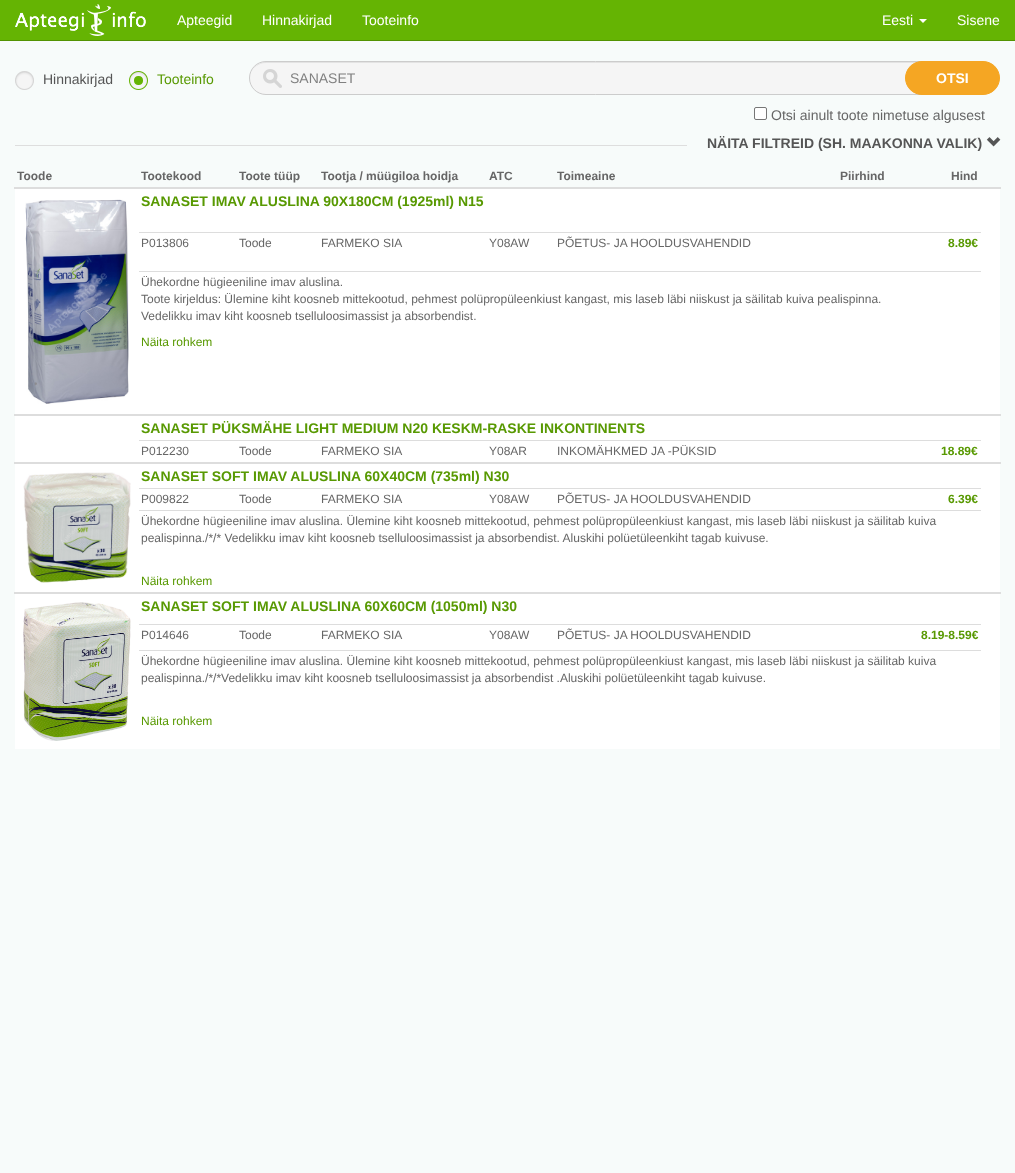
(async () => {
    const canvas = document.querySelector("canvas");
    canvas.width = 1015;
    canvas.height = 1173;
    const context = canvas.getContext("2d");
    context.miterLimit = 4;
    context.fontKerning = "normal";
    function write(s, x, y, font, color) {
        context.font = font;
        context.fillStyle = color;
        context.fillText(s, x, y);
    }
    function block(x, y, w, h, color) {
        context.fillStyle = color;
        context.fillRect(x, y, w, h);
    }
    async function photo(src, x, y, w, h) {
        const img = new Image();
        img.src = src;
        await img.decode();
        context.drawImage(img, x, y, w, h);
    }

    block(0, 0, 1015, 1173, "rgb(247, 251, 250)");
    block(0, 0, 1015, 40, "rgb(101, 180, 3)");
    block(0, 40, 1015, 1, "rgb(83, 147, 2)");
    await photo("media/1.png", 15, 4, 131, 32);
    write("Apteegid", 177, 25, "14px Liberation Sans", "rgb(255, 255, 255)");
    write("Hinnakirjad", 262, 25, "14px Liberation Sans", "rgb(255, 255, 255)");
    write("Tooteinfo", 362, 25, "14px Liberation Sans", "rgb(255, 255, 255)");
    write("Eesti", 882, 25, "14px Liberation Sans", "rgb(255, 255, 255)");
    context.beginPath();
    context.moveTo(919, 19);
    context.lineTo(927, 19);
    context.lineTo(923, 23);
    context.closePath();
    context.fill();
    write("Sisene", 957, 25, "14px Liberation Sans", "rgb(255, 255, 255)");
    await photo("media/2.png", 15, 71, 19, 19);
    write("Hinnakirjad", 43, 84, "14px Liberation Sans", "rgb(85, 85, 85)");
    await photo("media/3.png", 129, 71, 19, 19);
    write("Tooteinfo", 157, 84, "14px Liberation Sans", "rgb(88, 153, 2)");
    context.fillStyle = "rgb(245, 245, 245)";
    context.beginPath();
    context.roundRect(249, 61, 677, 34, [17, 0, 0, 17]);
    context.fill();
    context.fillStyle = "rgb(227, 227, 227)";
    context.beginPath();
    context.moveTo(266, 63);
    context.lineTo(925, 63);
    context.lineTo(925, 62);
    context.lineTo(266, 62);
    context.bezierCurveTo(257, 62, 250, 70, 250, 78);
    context.bezierCurveTo(250, 70, 257, 63, 266, 63);
    context.closePath();
    context.fill();
    context.beginPath();
    context.roundRect(249.5, 61.5, 676, 33, [16.5, 0, 0, 16.5]);
    context.strokeStyle = "rgb(204, 204, 204)";
    context.stroke();
    await photo("media/4.png", 263, 69, 19, 19);
    write("SANASET", 290, 83, "14px Liberation Sans", "rgb(128, 128, 128)");
    context.fillStyle = "rgb(245, 166, 35)";
    context.beginPath();
    context.roundRect(905.5, 61.5, 94, 33, 16.5);
    context.fill();
    context.strokeStyle = "rgb(245, 166, 35)";
    context.stroke();
    write("OTSI", 936, 83, "bold 14px Liberation Sans", "rgb(255, 255, 255)");
    context.beginPath();
    context.roundRect(754.5, 107.5, 12, 12, 1.5);
    context.fill();
    context.strokeStyle = "rgb(118, 118, 118)";
    context.stroke();
    write("Otsi ainult toote nimetuse algusest", 771, 120, "14px Liberation Sans", "rgb(102, 102, 102)");
    block(15, 145, 672, 1, "rgb(222, 222, 222)");
    write("NÄITA FILTREID (SH. MAAKONNA VALIK)", 707, 148, "bold 14px Liberation Sans", "rgb(85, 85, 85)");
    await photo("media/5.png", 986, 137, 15, 10);
    write("Toode", 17, 180, "bold 12px Liberation Sans", "rgb(102, 102, 102)");
    write("Tootekood", 141, 180, "bold 12px Liberation Sans", "rgb(102, 102, 102)");
    write("Toote tüüp", 239, 180, "bold 12px Liberation Sans", "rgb(102, 102, 102)");
    write("Tootja / müügiloa hoidja", 321, 180, "bold 12px Liberation Sans", "rgb(102, 102, 102)");
    write("ATC", 489, 180, "bold 12px Liberation Sans", "rgb(102, 102, 102)");
    write("Toimeaine", 557, 180, "bold 12px Liberation Sans", "rgb(102, 102, 102)");
    write("Piirhind", 840, 180, "bold 12px Liberation Sans", "rgb(102, 102, 102)");
    write("Hind", 951, 180, "bold 12px Liberation Sans", "rgb(102, 102, 102)");
    block(14, 187, 987, 2, "rgb(221, 221, 221)");
    block(15, 189, 985, 225, "rgb(255, 255, 255)");
    await photo("media/6.png", 25, 199, 104, 205);
    write("SANASET IMAV ALUSLINA 90X180CM (1925ml) N15", 141, 206, "bold 14px Liberation Sans", "rgb(88, 153, 2)");
    write("P013806", 141, 247, "12px Liberation Sans", "rgb(102, 102, 102)");
    write("Toode", 239, 247, "12px Liberation Sans", "rgb(102, 102, 102)");
    write("FARMEKO SIA", 321, 247, "12px Liberation Sans", "rgb(102, 102, 102)");
    write("Y08AW", 489, 247, "12px Liberation Sans", "rgb(102, 102, 102)");
    write("PÕETUS- JA HOOLDUSVAHENDID", 557, 247, "12px Liberation Sans", "rgb(102, 102, 102)");
    block(139, 232, 842, 1, "rgb(221, 221, 221)");
    write("8.89€", 948, 247, "bold 12px Liberation Sans", "rgb(88, 153, 2)");
    block(139, 271, 842, 1, "rgb(221, 221, 221)");
    write("Ühekordne hügieeniline imav aluslina.", 141, 286, "12px Liberation Sans", "rgb(102, 102, 102)");
    write("Toote kirjeldus: Ülemine kiht koosneb mittekootud, pehmest polüpropüleenkiust kangast, mis laseb läbi niiskust ja säilitab kuiva pealispinna.", 141, 303, "12px Liberation Sans", "rgb(102, 102, 102)");
    write("Vedelikku imav kiht koosneb tselluloosimassist ja absorbendist.", 141, 320, "12px Liberation Sans", "rgb(102, 102, 102)");
    write("Näita rohkem", 141, 346, "12px Liberation Sans", "rgb(88, 153, 2)");
    block(15, 416, 985, 46, "rgb(255, 255, 255)");
    block(14, 414, 987, 2, "rgb(221, 221, 221)");
    write("SANASET PÜKSMÄHE LIGHT MEDIUM N20 KESKM-RASKE INKONTINENTS", 141, 433, "bold 14px Liberation Sans", "rgb(88, 153, 2)");
    write("P012230", 141, 455, "12px Liberation Sans", "rgb(102, 102, 102)");
    write("Toode", 239, 455, "12px Liberation Sans", "rgb(102, 102, 102)");
    write("FARMEKO SIA", 321, 455, "12px Liberation Sans", "rgb(102, 102, 102)");
    write("Y08AR", 489, 455, "12px Liberation Sans", "rgb(102, 102, 102)");
    write("INKOMÄHKMED JA -PÜKSID", 557, 455, "12px Liberation Sans", "rgb(102, 102, 102)");
    block(139, 440, 842, 1, "rgb(221, 221, 221)");
    write("18.89€", 941, 455, "bold 12px Liberation Sans", "rgb(88, 153, 2)");
    block(15, 464, 985, 128, "rgb(255, 255, 255)");
    block(14, 462, 987, 2, "rgb(221, 221, 221)");
    await photo("media/7.png", 23, 472, 108, 111);
    write("SANASET SOFT IMAV ALUSLINA 60X40CM (735ml) N30", 141, 481, "bold 14px Liberation Sans", "rgb(88, 153, 2)");
    write("P009822", 141, 503, "12px Liberation Sans", "rgb(102, 102, 102)");
    write("Toode", 239, 503, "12px Liberation Sans", "rgb(102, 102, 102)");
    write("FARMEKO SIA", 321, 503, "12px Liberation Sans", "rgb(102, 102, 102)");
    write("Y08AW", 489, 503, "12px Liberation Sans", "rgb(102, 102, 102)");
    write("PÕETUS- JA HOOLDUSVAHENDID", 557, 503, "12px Liberation Sans", "rgb(102, 102, 102)");
    block(139, 488, 842, 1, "rgb(221, 221, 221)");
    write("6.39€", 948, 503, "bold 12px Liberation Sans", "rgb(88, 153, 2)");
    block(139, 510, 842, 1, "rgb(221, 221, 221)");
    write("Ühekordne hügieeniline imav aluslina. Ülemine kiht koosneb mittekootud, pehmest polüpropüleenkiust kangast, mis laseb läbi niiskust ja säilitab kuiva", 141, 525, "12px Liberation Sans", "rgb(102, 102, 102)");
    write("pealispinna./*/* Vedelikku imav kiht koosneb tselluloosimassist ja absorbendist. Aluskihi polüetüleenkiht tagab kuivuse.", 141, 542, "12px Liberation Sans", "rgb(102, 102, 102)");
    write("Näita rohkem", 141, 585, "12px Liberation Sans", "rgb(88, 153, 2)");
    block(15, 594, 985, 155, "rgb(255, 255, 255)");
    block(14, 592, 987, 2, "rgb(221, 221, 221)");
    await photo("media/8.png", 23, 602, 108, 139);
    write("SANASET SOFT IMAV ALUSLINA 60X60CM (1050ml) N30", 141, 611, "bold 14px Liberation Sans", "rgb(88, 153, 2)");
    write("P014646", 141, 639, "12px Liberation Sans", "rgb(102, 102, 102)");
    write("Toode", 239, 639, "12px Liberation Sans", "rgb(102, 102, 102)");
    write("FARMEKO SIA", 321, 639, "12px Liberation Sans", "rgb(102, 102, 102)");
    write("Y08AW", 489, 639, "12px Liberation Sans", "rgb(102, 102, 102)");
    write("PÕETUS- JA HOOLDUSVAHENDID", 557, 639, "12px Liberation Sans", "rgb(102, 102, 102)");
    block(139, 624, 842, 1, "rgb(221, 221, 221)");
    write("8.19-8.59€", 921, 639, "bold 12px Liberation Sans", "rgb(88, 153, 2)");
    block(139, 650, 842, 1, "rgb(221, 221, 221)");
    write("Ühekordne hügieeniline imav aluslina. Ülemine kiht koosneb mittekootud, pehmest polüpropüleenkiust kangast, mis laseb läbi niiskust ja säilitab kuiva", 141, 665, "12px Liberation Sans", "rgb(102, 102, 102)");
    write("pealispinna./*/*Vedelikku imav kiht koosneb tselluloosimassist ja absorbendist .Aluskihi polüetüleenkiht tagab kuivuse.", 141, 682, "12px Liberation Sans", "rgb(102, 102, 102)");
    write("Näita rohkem", 141, 725, "12px Liberation Sans", "rgb(88, 153, 2)");
})();
